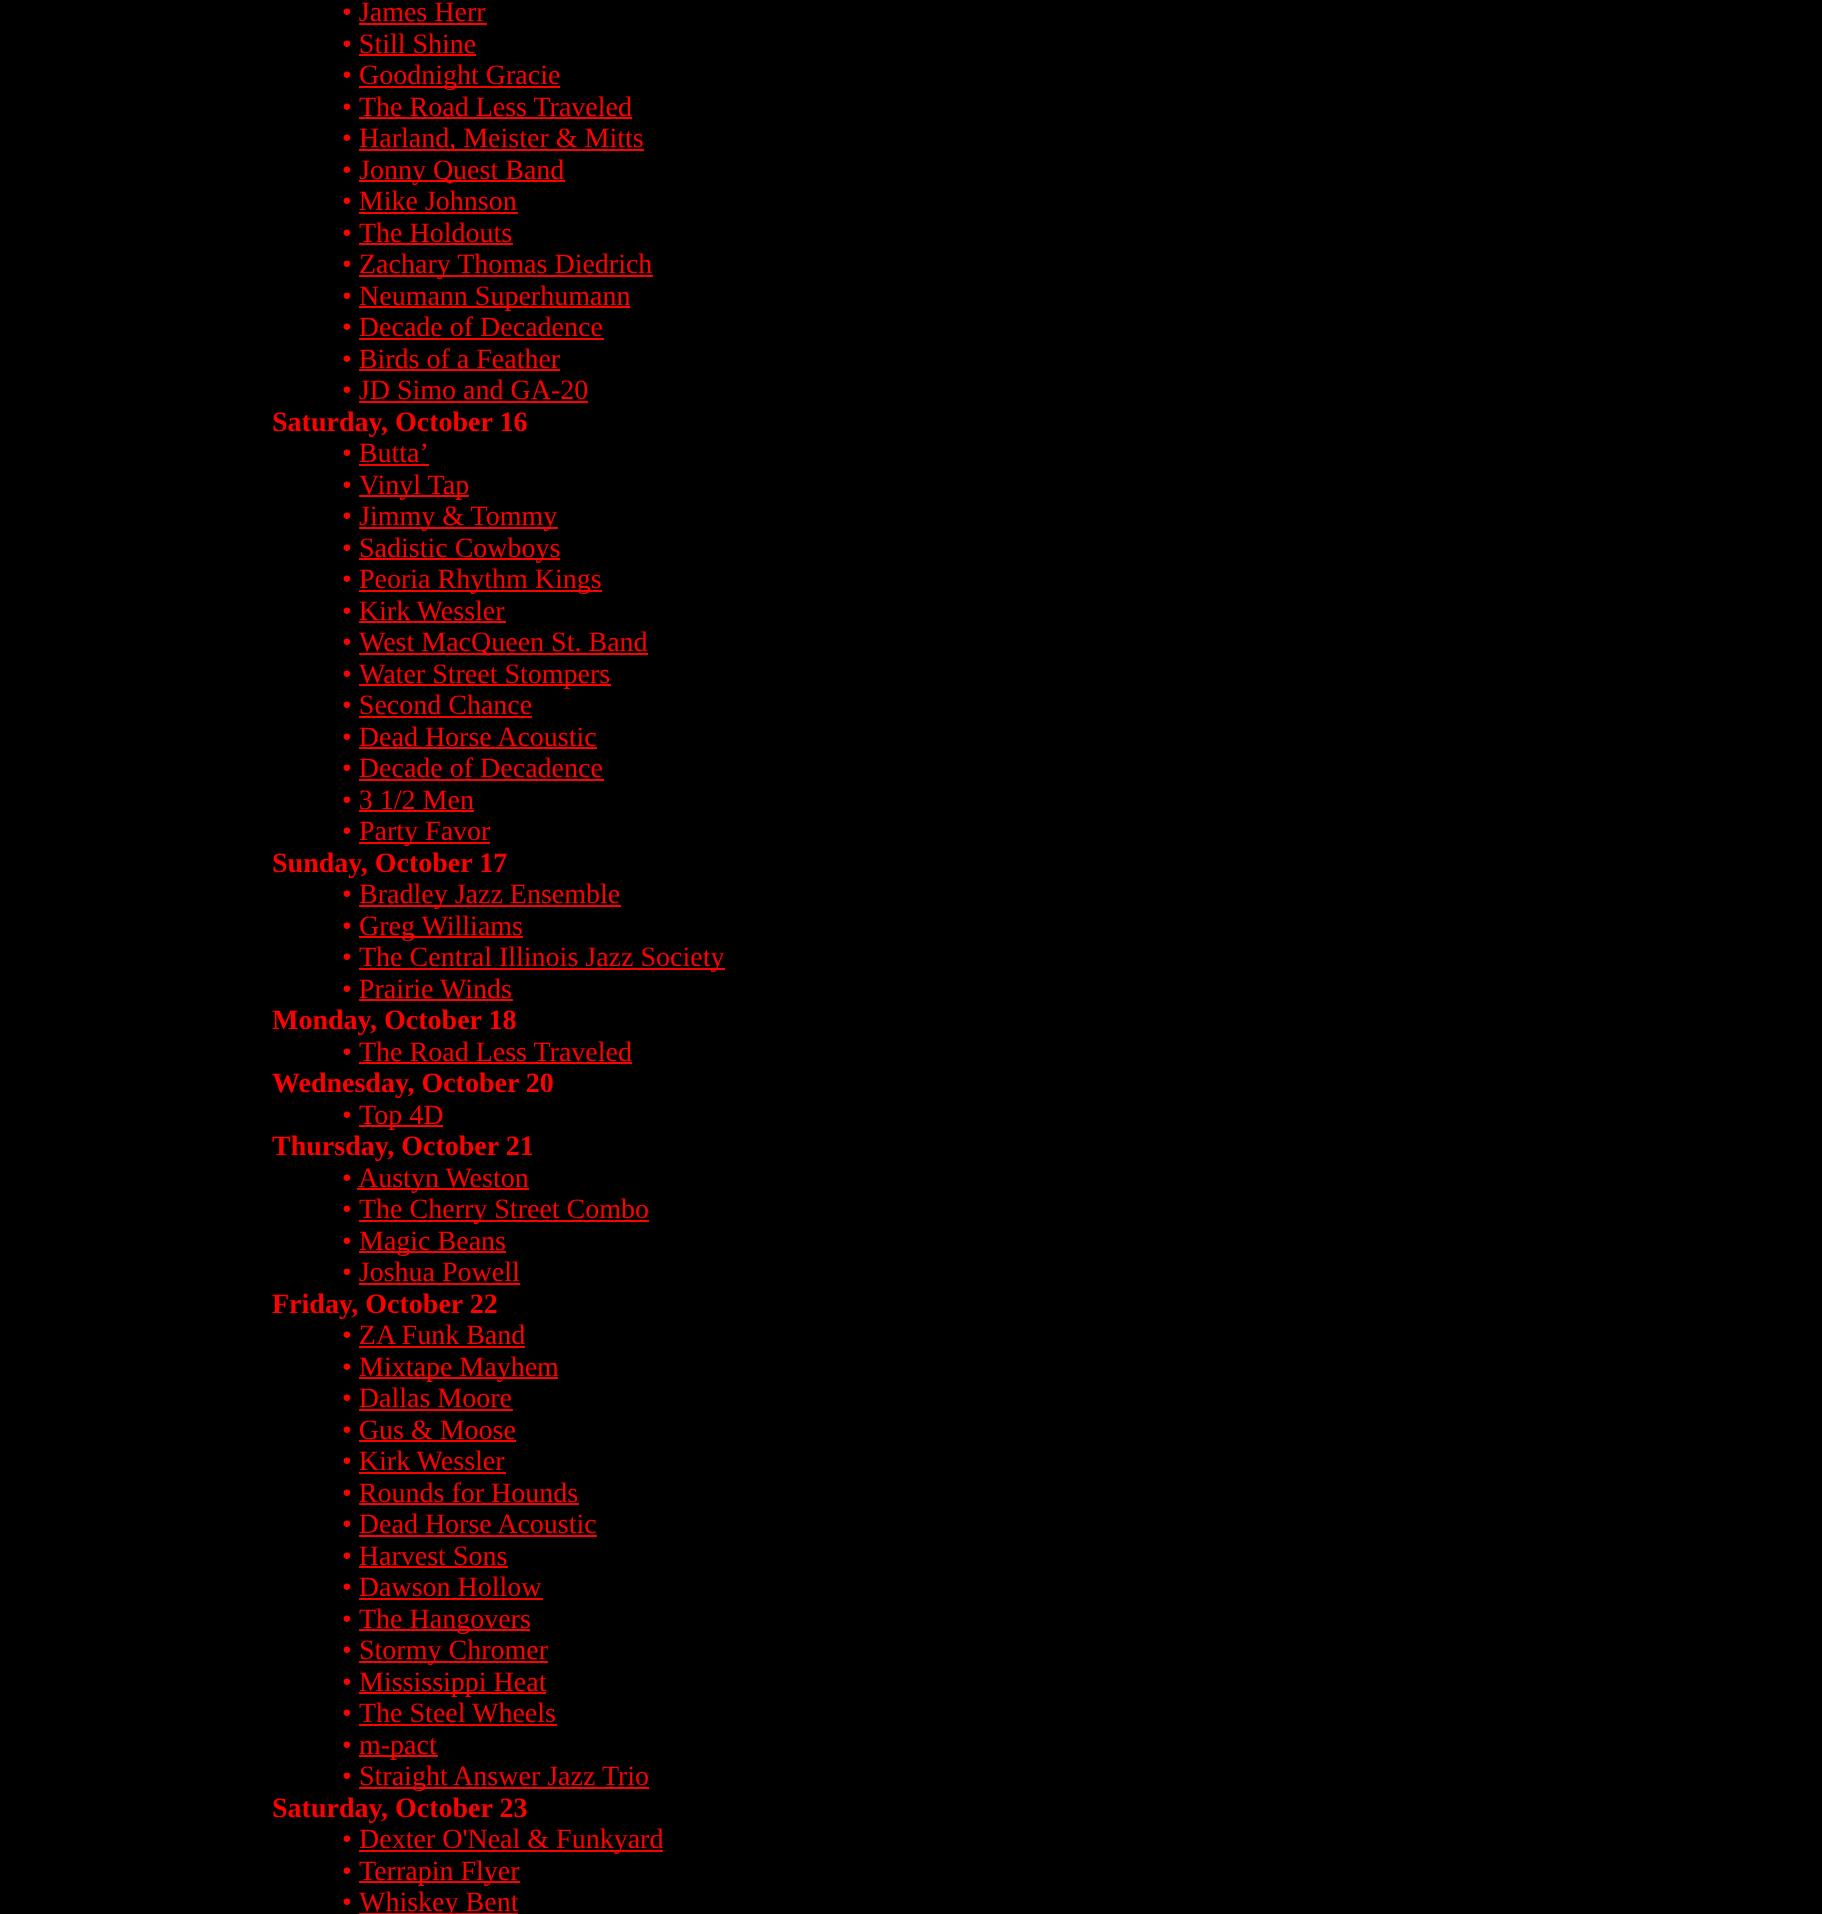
(async () => {
    const canvas = document.querySelector("canvas");
    canvas.width = 1822;
    canvas.height = 1914;
    const context = canvas.getContext("2d");
    context.miterLimit = 4;
    context.fontKerning = "normal";
    function write(s, x, y, font, color) {
        context.font = font;
        context.fillStyle = color;
        context.fillText(s, x, y);
    }
    function block(x, y, w, h, color) {
        context.fillStyle = color;
        context.fillRect(x, y, w, h);
    }

    block(0, 0, 1822, 1914, "rgb(0, 0, 0)");
    write("• James Herr", 342, 21, "28px Liberation Serif", "rgb(255, 0, 0)");
    block(359, 23, 128, 2, "rgb(255, 0, 0)");
    write("• Still Shine", 342, 53, "28px Liberation Serif", "rgb(255, 0, 0)");
    block(359, 54, 117, 2, "rgb(255, 0, 0)");
    write("•", 342, 84, "28px Liberation Serif", "rgb(255, 0, 0)");
    block(359, 86, 201, 2, "rgb(255, 0, 0)");
    write("Goodnight Gracie", 359, 84, "28px Liberation Serif", "rgb(255, 0, 0)");
    write("•", 342, 116, "28px Liberation Serif", "rgb(255, 0, 0)");
    write("The Road Less Traveled", 359, 116, "28px Liberation Serif", "rgb(255, 0, 0)");
    block(359, 117, 273, 2, "rgb(255, 0, 0)");
    write("•", 342, 147, "28px Liberation Serif", "rgb(255, 0, 0)");
    block(359, 149, 285, 2, "rgb(255, 0, 0)");
    write("Harland, Meister & Mitts", 359, 147, "28px Liberation Serif", "rgb(255, 0, 0)");
    write("•", 342, 179, "28px Liberation Serif", "rgb(255, 0, 0)");
    block(359, 180, 206, 2, "rgb(255, 0, 0)");
    write("Jonny Quest Band", 359, 179, "28px Liberation Serif", "rgb(255, 0, 0)");
    write("• Mike Johnson", 342, 210, "28px Liberation Serif", "rgb(255, 0, 0)");
    block(359, 212, 159, 2, "rgb(255, 0, 0)");
    write("•", 342, 242, "28px Liberation Serif", "rgb(255, 0, 0)");
    write("The Holdouts", 359, 242, "28px Liberation Serif", "rgb(255, 0, 0)");
    block(359, 243, 154, 2, "rgb(255, 0, 0)");
    write("•", 342, 273, "28px Liberation Serif", "rgb(255, 0, 0)");
    block(359, 275, 294, 2, "rgb(255, 0, 0)");
    write("Zachary Thomas Diedrich", 359, 273, "28px Liberation Serif", "rgb(255, 0, 0)");
    write("•", 342, 305, "28px Liberation Serif", "rgb(255, 0, 0)");
    block(359, 306, 271, 2, "rgb(255, 0, 0)");
    write("Neumann Superhumann", 359, 305, "28px Liberation Serif", "rgb(255, 0, 0)");
    write("• Decade of Decadence", 342, 336, "28px Liberation Serif", "rgb(255, 0, 0)");
    block(359, 338, 245, 2, "rgb(255, 0, 0)");
    write("• Birds of a Feather", 342, 368, "28px Liberation Serif", "rgb(255, 0, 0)");
    block(359, 369, 201, 2, "rgb(255, 0, 0)");
    write("• JD Simo and GA-20", 342, 399, "28px Liberation Serif", "rgb(255, 0, 0)");
    block(359, 401, 229, 2, "rgb(255, 0, 0)");
    write("Saturday, October 16", 272, 431, "bold 28px Liberation Serif", "rgb(255, 0, 0)");
    write("• Butta’", 342, 462, "28px Liberation Serif", "rgb(255, 0, 0)");
    block(359, 464, 70, 2, "rgb(255, 0, 0)");
    write("•", 342, 494, "28px Liberation Serif", "rgb(255, 0, 0)");
    block(359, 495, 110, 2, "rgb(255, 0, 0)");
    write("Vinyl Tap", 359, 494, "28px Liberation Serif", "rgb(255, 0, 0)");
    write("•", 342, 525, "28px Liberation Serif", "rgb(255, 0, 0)");
    block(359, 527, 199, 2, "rgb(255, 0, 0)");
    write("Jimmy & Tommy", 359, 525, "28px Liberation Serif", "rgb(255, 0, 0)");
    write("•", 342, 557, "28px Liberation Serif", "rgb(255, 0, 0)");
    block(359, 558, 201, 2, "rgb(255, 0, 0)");
    write("Sadistic Cowboys", 359, 557, "28px Liberation Serif", "rgb(255, 0, 0)");
    write("•", 342, 588, "28px Liberation Serif", "rgb(255, 0, 0)");
    block(359, 590, 243, 2, "rgb(255, 0, 0)");
    write("Peoria Rhythm Kings", 359, 588, "28px Liberation Serif", "rgb(255, 0, 0)");
    write("• Kirk Wessler", 342, 620, "28px Liberation Serif", "rgb(255, 0, 0)");
    block(359, 621, 147, 2, "rgb(255, 0, 0)");
    write("•", 342, 651, "28px Liberation Serif", "rgb(255, 0, 0)");
    block(359, 653, 289, 2, "rgb(255, 0, 0)");
    write("West MacQueen St. Band", 359, 651, "28px Liberation Serif", "rgb(255, 0, 0)");
    write("•", 342, 683, "28px Liberation Serif", "rgb(255, 0, 0)");
    block(359, 684, 252, 2, "rgb(255, 0, 0)");
    write("Water Street Stompers", 359, 683, "28px Liberation Serif", "rgb(255, 0, 0)");
    write("• Second Chance", 342, 714, "28px Liberation Serif", "rgb(255, 0, 0)");
    block(359, 716, 173, 2, "rgb(255, 0, 0)");
    write("• Dead Horse Acoustic", 342, 746, "28px Liberation Serif", "rgb(255, 0, 0)");
    block(359, 747, 238, 2, "rgb(255, 0, 0)");
    write("• Decade of Decadence", 342, 777, "28px Liberation Serif", "rgb(255, 0, 0)");
    block(359, 779, 245, 2, "rgb(255, 0, 0)");
    write("• 3 1/2 Men", 342, 809, "28px Liberation Serif", "rgb(255, 0, 0)");
    block(359, 810, 115, 2, "rgb(255, 0, 0)");
    write("•", 342, 840, "28px Liberation Serif", "rgb(255, 0, 0)");
    block(359, 842, 131, 2, "rgb(255, 0, 0)");
    write("Party Favor", 359, 840, "28px Liberation Serif", "rgb(255, 0, 0)");
    write("Sunday, October 17", 272, 872, "bold 28px Liberation Serif", "rgb(255, 0, 0)");
    write("•", 342, 903, "28px Liberation Serif", "rgb(255, 0, 0)");
    block(359, 905, 262, 2, "rgb(255, 0, 0)");
    write("Bradley Jazz Ensemble", 359, 903, "28px Liberation Serif", "rgb(255, 0, 0)");
    write("•", 342, 935, "28px Liberation Serif", "rgb(255, 0, 0)");
    block(359, 936, 164, 2, "rgb(255, 0, 0)");
    write("Greg Williams", 359, 935, "28px Liberation Serif", "rgb(255, 0, 0)");
    write("•", 342, 966, "28px Liberation Serif", "rgb(255, 0, 0)");
    block(359, 968, 366, 2, "rgb(255, 0, 0)");
    write("The Central Illinois Jazz Society", 359, 966, "28px Liberation Serif", "rgb(255, 0, 0)");
    write("• Prairie Winds", 342, 998, "28px Liberation Serif", "rgb(255, 0, 0)");
    block(359, 999, 154, 2, "rgb(255, 0, 0)");
    write("Monday, October 18", 272, 1029, "bold 28px Liberation Serif", "rgb(255, 0, 0)");
    write("•", 342, 1061, "28px Liberation Serif", "rgb(255, 0, 0)");
    write("The Road Less Traveled", 359, 1061, "28px Liberation Serif", "rgb(255, 0, 0)");
    block(359, 1062, 273, 2, "rgb(255, 0, 0)");
    write("Wednesday, October 20", 272, 1092, "bold 28px Liberation Serif", "rgb(255, 0, 0)");
    write("•", 342, 1124, "28px Liberation Serif", "rgb(255, 0, 0)");
    block(359, 1125, 84, 2, "rgb(255, 0, 0)");
    write("Top 4D", 359, 1124, "28px Liberation Serif", "rgb(255, 0, 0)");
    write("Thursday, October 21", 272, 1155, "bold 28px Liberation Serif", "rgb(255, 0, 0)");
    write("•", 342, 1187, "28px Liberation Serif", "rgb(255, 0, 0)");
    block(357, 1188, 172, 2, "rgb(255, 0, 0)");
    write("Austyn Weston", 358, 1187, "28px Liberation Serif", "rgb(255, 0, 0)");
    write("•", 342, 1218, "28px Liberation Serif", "rgb(255, 0, 0)");
    block(359, 1220, 290, 2, "rgb(255, 0, 0)");
    write("The Cherry Street Combo", 359, 1218, "28px Liberation Serif", "rgb(255, 0, 0)");
    write("•", 342, 1250, "28px Liberation Serif", "rgb(255, 0, 0)");
    block(359, 1251, 147, 2, "rgb(255, 0, 0)");
    write("Magic Beans", 359, 1250, "28px Liberation Serif", "rgb(255, 0, 0)");
    write("• Joshua Powell", 342, 1281, "28px Liberation Serif", "rgb(255, 0, 0)");
    block(359, 1283, 161, 2, "rgb(255, 0, 0)");
    write("Friday, October 22", 272, 1313, "bold 28px Liberation Serif", "rgb(255, 0, 0)");
    write("• ZA Funk Band", 342, 1344, "28px Liberation Serif", "rgb(255, 0, 0)");
    block(359, 1346, 166, 2, "rgb(255, 0, 0)");
    write("•", 342, 1376, "28px Liberation Serif", "rgb(255, 0, 0)");
    block(359, 1377, 199, 2, "rgb(255, 0, 0)");
    write("Mixtape Mayhem", 359, 1376, "28px Liberation Serif", "rgb(255, 0, 0)");
    write("• Dallas Moore", 342, 1407, "28px Liberation Serif", "rgb(255, 0, 0)");
    block(359, 1409, 154, 2, "rgb(255, 0, 0)");
    write("• Gus & Moose", 342, 1439, "28px Liberation Serif", "rgb(255, 0, 0)");
    block(359, 1440, 157, 2, "rgb(255, 0, 0)");
    write("• Kirk Wessler", 342, 1470, "28px Liberation Serif", "rgb(255, 0, 0)");
    block(359, 1472, 147, 2, "rgb(255, 0, 0)");
    write("• Rounds for Hounds", 342, 1502, "28px Liberation Serif", "rgb(255, 0, 0)");
    block(359, 1503, 220, 2, "rgb(255, 0, 0)");
    write("• Dead Horse Acoustic", 342, 1533, "28px Liberation Serif", "rgb(255, 0, 0)");
    block(359, 1535, 238, 2, "rgb(255, 0, 0)");
    write("• Harvest Sons", 342, 1565, "28px Liberation Serif", "rgb(255, 0, 0)");
    block(359, 1566, 149, 2, "rgb(255, 0, 0)");
    write("• Dawson Hollow", 342, 1596, "28px Liberation Serif", "rgb(255, 0, 0)");
    block(359, 1598, 184, 2, "rgb(255, 0, 0)");
    write("•", 342, 1628, "28px Liberation Serif", "rgb(255, 0, 0)");
    block(359, 1629, 171, 2, "rgb(255, 0, 0)");
    write("The Hangovers", 359, 1628, "28px Liberation Serif", "rgb(255, 0, 0)");
    write("•", 342, 1659, "28px Liberation Serif", "rgb(255, 0, 0)");
    block(359, 1661, 189, 2, "rgb(255, 0, 0)");
    write("Stormy Chromer", 359, 1659, "28px Liberation Serif", "rgb(255, 0, 0)");
    write("•", 342, 1691, "28px Liberation Serif", "rgb(255, 0, 0)");
    block(359, 1692, 187, 2, "rgb(255, 0, 0)");
    write("Mississippi Heat", 359, 1691, "28px Liberation Serif", "rgb(255, 0, 0)");
    write("•", 342, 1722, "28px Liberation Serif", "rgb(255, 0, 0)");
    write("The Steel Wheels", 359, 1722, "28px Liberation Serif", "rgb(255, 0, 0)");
    block(359, 1724, 198, 2, "rgb(255, 0, 0)");
    write("•", 342, 1754, "28px Liberation Serif", "rgb(255, 0, 0)");
    block(359, 1755, 79, 2, "rgb(255, 0, 0)");
    write("m-pact", 359, 1754, "28px Liberation Serif", "rgb(255, 0, 0)");
    write("•", 342, 1785, "28px Liberation Serif", "rgb(255, 0, 0)");
    block(359, 1787, 290, 2, "rgb(255, 0, 0)");
    write("Straight Answer Jazz Trio", 359, 1785, "28px Liberation Serif", "rgb(255, 0, 0)");
    write("Saturday, October 23", 272, 1817, "bold 28px Liberation Serif", "rgb(255, 0, 0)");
    write("•", 342, 1848, "28px Liberation Serif", "rgb(255, 0, 0)");
    block(359, 1850, 304, 2, "rgb(255, 0, 0)");
    write("Dexter O'Neal & Funkyard", 359, 1848, "28px Liberation Serif", "rgb(255, 0, 0)");
    write("•", 342, 1880, "28px Liberation Serif", "rgb(255, 0, 0)");
    block(359, 1881, 161, 2, "rgb(255, 0, 0)");
    write("Terrapin Flyer", 359, 1880, "28px Liberation Serif", "rgb(255, 0, 0)");
    write("•", 342, 1911, "28px Liberation Serif", "rgb(255, 0, 0)");
    block(359, 1913, 159, 1, "rgb(255, 0, 0)");
    write("Whiskey Bent", 359, 1911, "28px Liberation Serif", "rgb(255, 0, 0)");
})();
